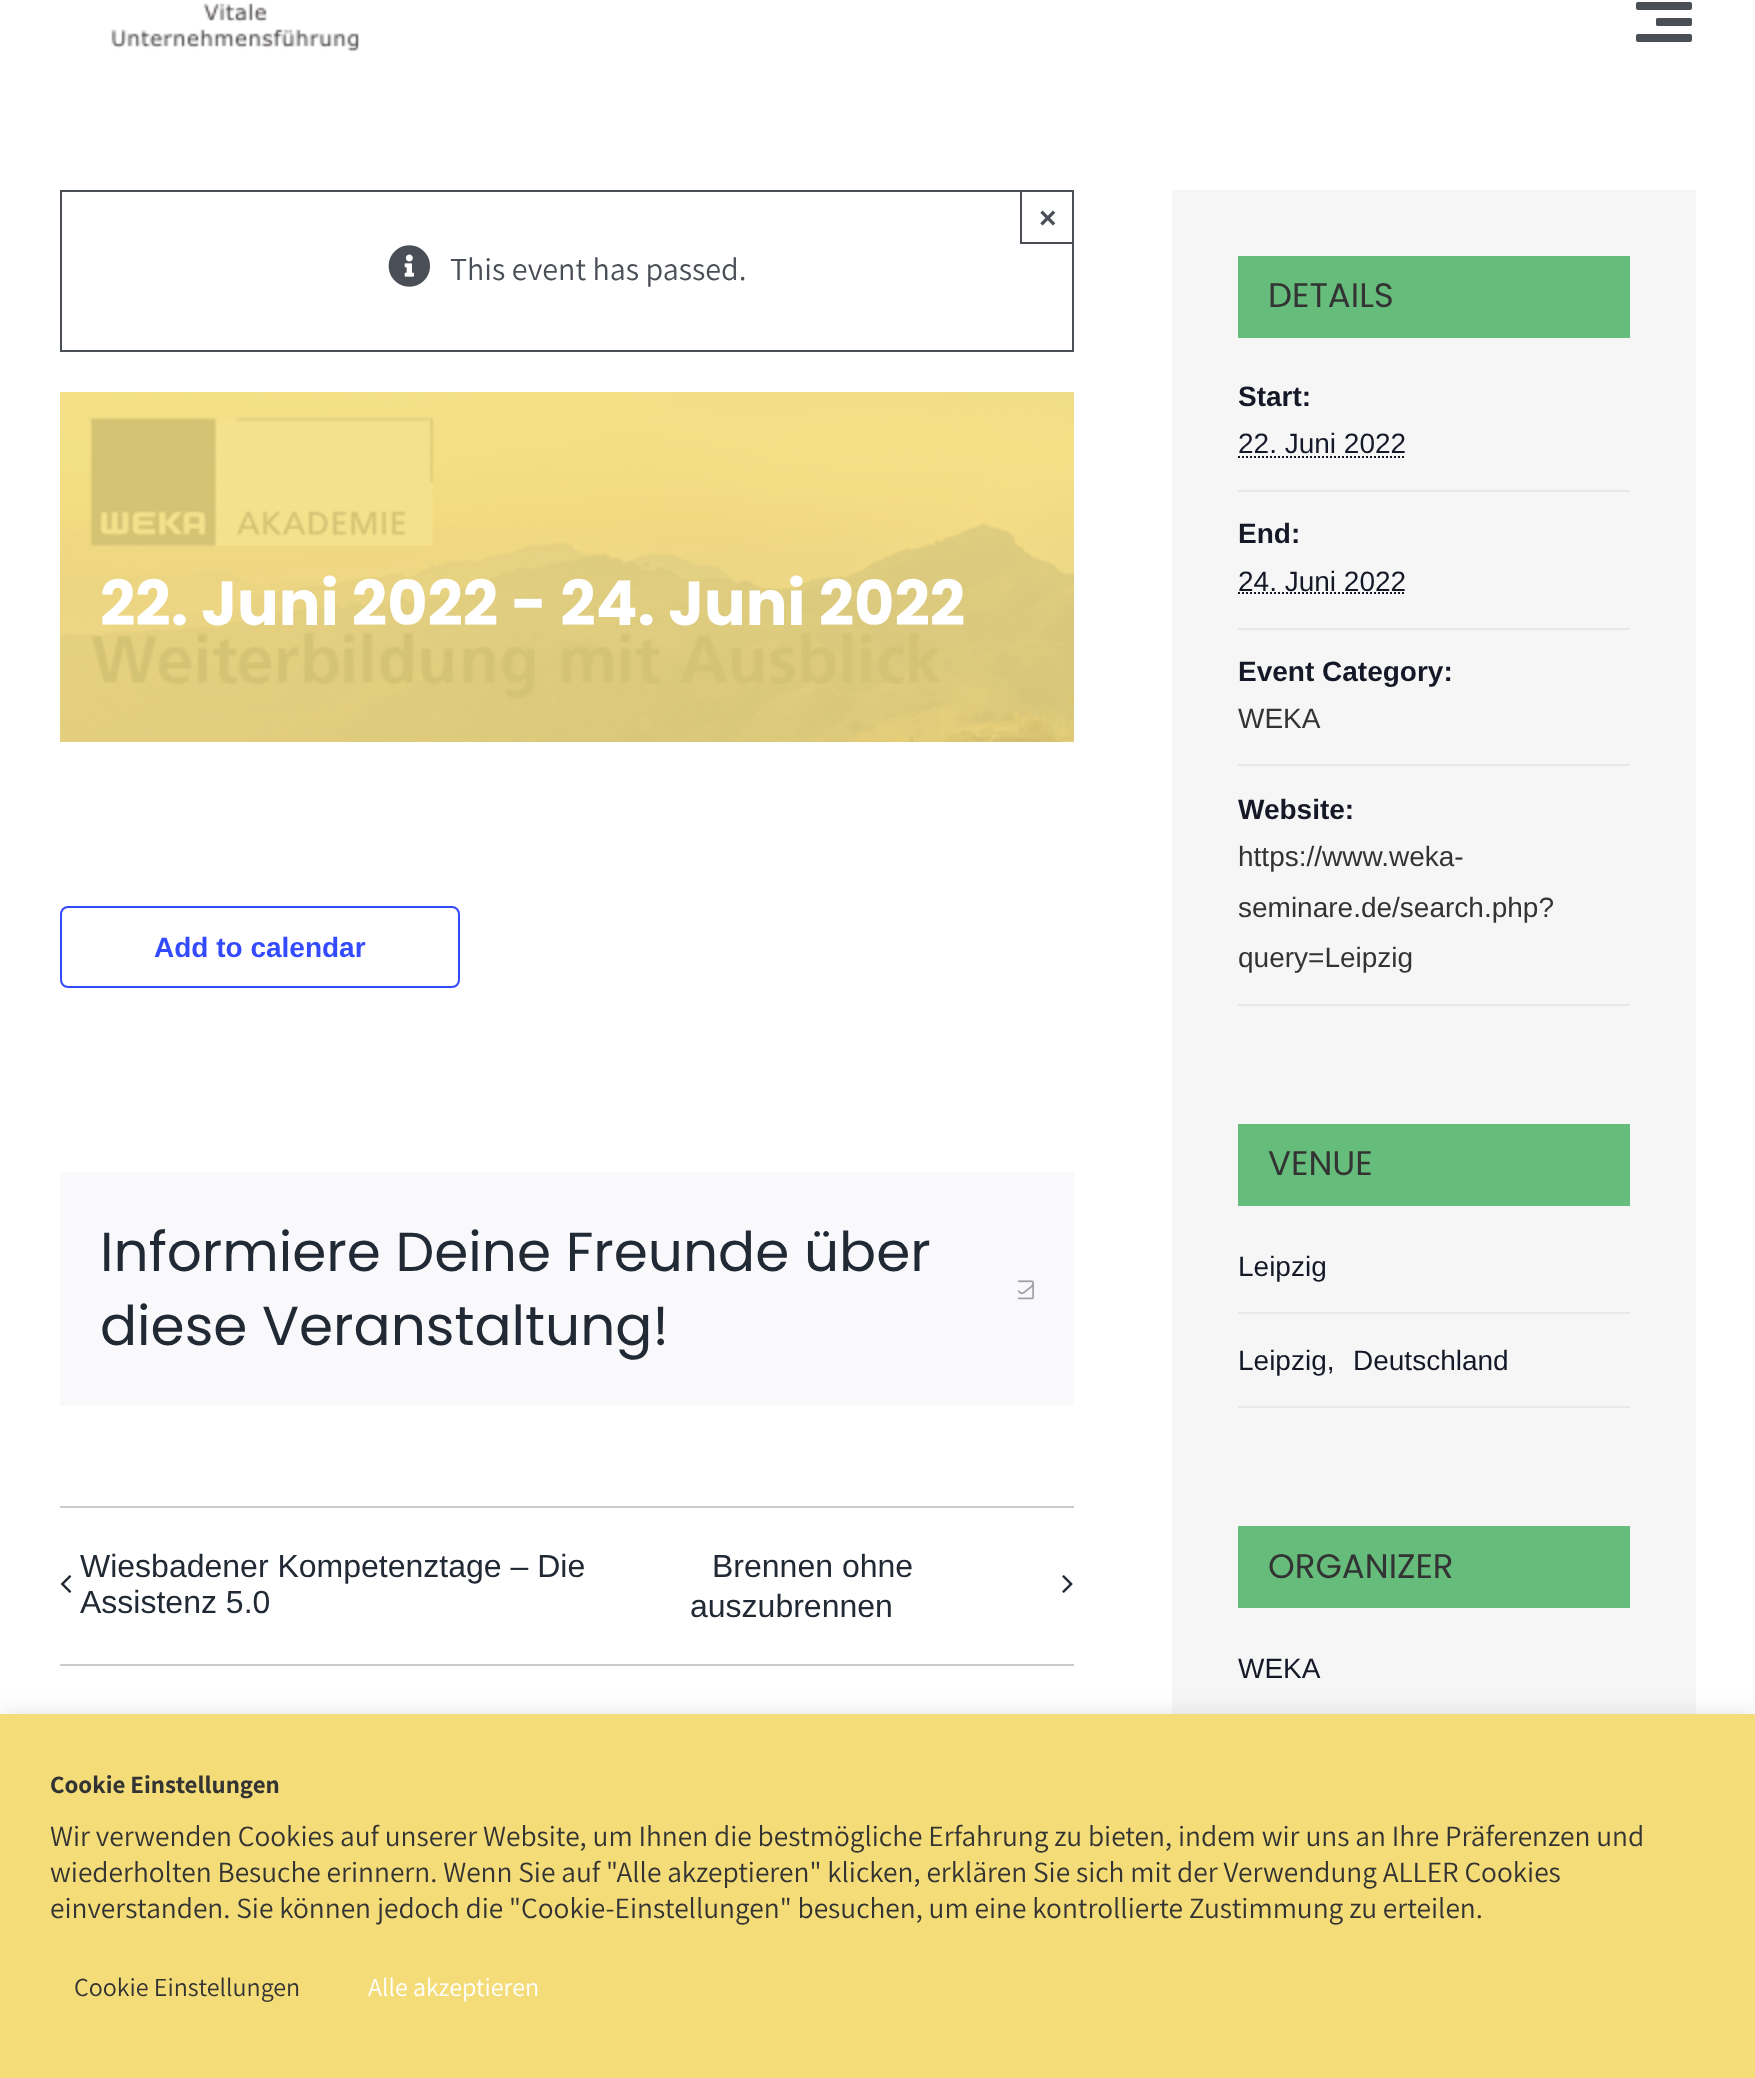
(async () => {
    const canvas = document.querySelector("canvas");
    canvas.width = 1755;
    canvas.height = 2078;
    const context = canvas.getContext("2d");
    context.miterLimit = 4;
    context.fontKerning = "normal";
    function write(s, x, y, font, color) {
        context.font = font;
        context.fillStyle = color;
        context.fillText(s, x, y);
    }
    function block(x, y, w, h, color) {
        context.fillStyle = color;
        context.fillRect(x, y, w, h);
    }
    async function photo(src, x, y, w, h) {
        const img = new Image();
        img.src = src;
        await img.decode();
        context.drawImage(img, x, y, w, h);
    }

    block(0, 0, 1755, 2078, "rgb(255, 255, 255)");
    await photo("media/1.png", 111, 3, 249, 50);
    await photo("media/2.png", 1636, 2, 56, 40);
    context.strokeStyle = "rgb(74, 78, 87)";
    context.lineWidth = 2;
    context.strokeRect(61, 191, 1012, 160);
    context.strokeRect(1021, 191, 52, 52);
    write("×", 1039, 228, "bold 30px Liberation Sans", "rgb(74, 78, 87)");
    await photo("media/3.png", 388, 245, 42, 42);
    write("This event has passed.", 450, 280, "32px Assistant", "rgb(74, 78, 87)");
    await photo("media/4.png", 60, 392, 1014, 350);
    write("22. Juni 2022 - 24. Juni 2022", 100, 625, "bold 61.9px Poppins", "rgb(255, 255, 255)");
    context.beginPath();
    context.roundRect(61, 907, 398, 80, 7);
    context.strokeStyle = "rgb(51, 74, 255)";
    context.stroke();
    write("Add to calendar", 154, 957, "bold 28px Liberation Sans", "rgb(51, 74, 255)");
    block(60, 1172, 1014, 234, "rgb(249, 249, 251)");
    write("Informiere Deine Freunde über", 100, 1271, "54.9px Poppins", "rgb(33, 41, 52)");
    write("diese Veranstaltung!", 100, 1345, "54.9px Poppins", "rgb(33, 41, 52)");
    await photo("media/5.png", 1018, 1280, 16, 20);
    block(60, 1506, 1014, 2, "rgb(204, 204, 204)");
    block(60, 1664, 1014, 2, "rgb(204, 204, 204)");
    await photo("media/6.png", 60, 1575, 12, 18);
    write("Wiesbadener Kompetenztage – Die", 80, 1577, "32px Liberation Sans", "rgb(33, 41, 52)");
    write("Assistenz 5.0", 80, 1613, "32px Liberation Sans", "rgb(33, 41, 52)");
    write("Brennen ohne", 712, 1577, "32px Liberation Sans", "rgb(33, 41, 52)");
    await photo("media/7.png", 1062, 1575, 11, 18);
    write("auszubrennen", 690, 1617, "32px Liberation Sans", "rgb(33, 41, 52)");
    block(1172, 190, 524, 1524, "rgb(246, 246, 246)");
    block(1238, 256, 392, 82, "rgb(101, 188, 123)");
    write("DETAILS", 1268, 307, "34px Poppins", "rgb(51, 51, 51)");
    write("Start:", 1238, 406, "bold 28px Liberation Sans", "rgb(20, 24, 39)");
    block(1238, 490, 392, 2, "rgb(232, 232, 232)");
    write("22. Juni 2022", 1238, 453, "28px Liberation Sans", "rgb(20, 24, 39)");
    context.beginPath();
    context.moveTo(1238, 457);
    context.lineTo(1406, 457);
    context.strokeStyle = "rgb(20, 24, 39)";
    context.setLineDash([2, 2]);
    context.stroke();
    write("End:", 1238, 543, "bold 28px Liberation Sans", "rgb(20, 24, 39)");
    block(1238, 628, 392, 2, "rgb(232, 232, 232)");
    write("24. Juni 2022", 1238, 591, "28px Liberation Sans", "rgb(20, 24, 39)");
    context.beginPath();
    context.moveTo(1238, 593);
    context.lineTo(1406, 593);
    context.stroke();
    write("Event Category:", 1238, 681, "bold 28px Liberation Sans", "rgb(20, 24, 39)");
    block(1238, 764, 392, 2, "rgb(232, 232, 232)");
    write("WEKA", 1238, 728, "28px Liberation Sans", "rgb(51, 51, 51)");
    write("Website:", 1238, 819, "bold 28px Liberation Sans", "rgb(20, 24, 39)");
    block(1238, 1004, 392, 2, "rgb(232, 232, 232)");
    write("https://www.weka-", 1238, 866, "28px Liberation Sans", "rgb(51, 51, 51)");
    write("seminare.de/search.php?", 1238, 917, "28px Liberation Sans", "rgb(51, 51, 51)");
    write("query=Leipzig", 1238, 967, "28px Liberation Sans", "rgb(51, 51, 51)");
    block(1238, 1124, 392, 82, "rgb(101, 188, 123)");
    write("VENUE", 1268, 1175, "34px Poppins", "rgb(51, 51, 51)");
    block(1238, 1312, 392, 2, "rgb(232, 232, 232)");
    write("Leipzig", 1238, 1276, "28px Liberation Sans", "rgb(20, 24, 39)");
    block(1238, 1406, 392, 2, "rgb(232, 232, 232)");
    write("Leipzig,", 1238, 1370, "28px Liberation Sans", "rgb(20, 24, 39)");
    write("Deutschland", 1353, 1370, "28px Liberation Sans", "rgb(20, 24, 39)");
    block(1238, 1526, 392, 82, "rgb(101, 188, 123)");
    write("ORGANIZER", 1268, 1578, "34px Poppins", "rgb(51, 51, 51)");
    write("WEKA", 1238, 1678, "28px Liberation Sans", "rgb(20, 24, 39)");
    context.fillStyle = "rgba(172, 171, 171, 0.3)";
    context.filter = "blur(10px)";
    context.beginPath();
    context.rect(0, 1712, 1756, 364);
    context.fill();
    context.filter = "none";
    block(0, 1714, 1755, 364, "rgb(244, 220, 120)");
    write("Cookie Einstellungen", 50, 1793, "bold 25px Assistant", "rgb(51, 51, 51)");
    write("Wir verwenden Cookies auf unserer Website, um Ihnen die bestmögliche Erfahrung zu bieten, indem wir uns an Ihre Präferenzen und", 50, 1846, "29.33px Assistant", "rgb(51, 51, 51)");
    write("wiederholten Besuche erinnern. Wenn Sie auf \"Alle akzeptieren\" klicken, erklären Sie sich mit der Verwendung ALLER Cookies", 50, 1882, "29.33px Assistant", "rgb(51, 51, 51)");
    write("einverstanden. Sie können jedoch die \"Cookie-Einstellungen\" besuchen, um eine kontrollierte Zustimmung zu erteilen.", 50, 1918, "29.33px Assistant", "rgb(51, 51, 51)");
    write("Cookie Einstellungen", 74, 1996, "26px Assistant", "rgb(51, 51, 51)");
    write("Alle akzeptieren", 368, 1996, "26px Assistant", "rgb(255, 255, 255)");
})();
